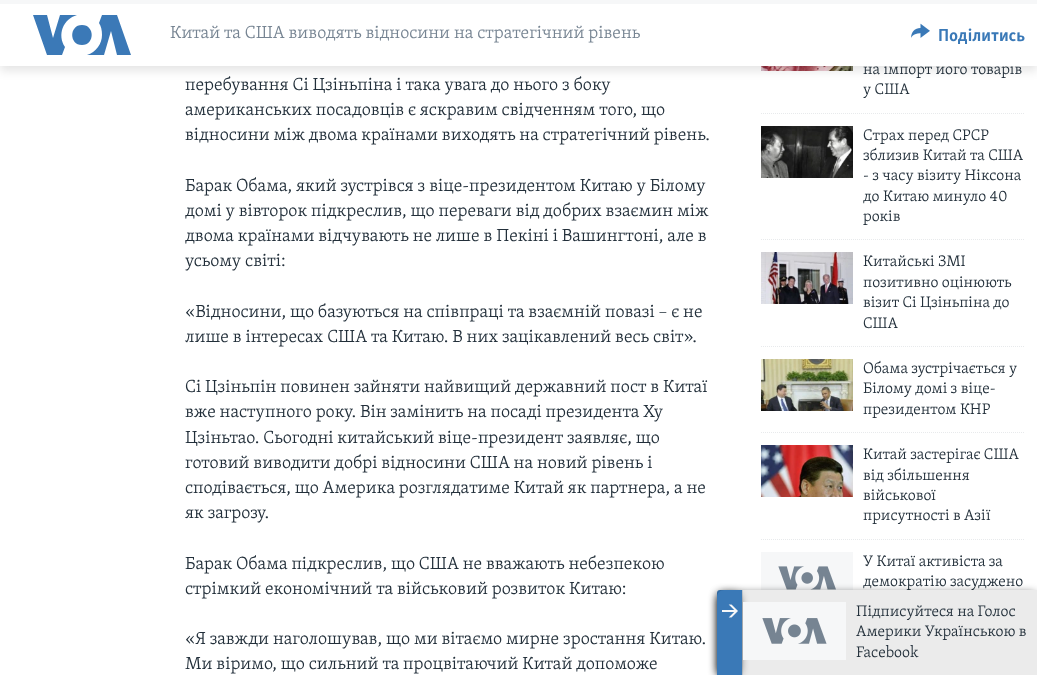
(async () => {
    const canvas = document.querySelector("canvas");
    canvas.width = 1037;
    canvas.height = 675;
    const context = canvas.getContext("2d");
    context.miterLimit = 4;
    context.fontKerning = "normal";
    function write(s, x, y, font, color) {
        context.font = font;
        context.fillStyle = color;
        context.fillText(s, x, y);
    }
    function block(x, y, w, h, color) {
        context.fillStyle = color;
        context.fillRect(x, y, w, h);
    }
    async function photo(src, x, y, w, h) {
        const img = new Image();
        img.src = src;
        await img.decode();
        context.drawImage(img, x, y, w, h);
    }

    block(0, 0, 1037, 675, "rgb(255, 255, 255)");
    await photo("media/2.png", 761, 66, 92, 5);
    context.fillStyle = "rgba(0, 0, 0, 0.1)";
    context.filter = "blur(5px)";
    context.beginPath();
    context.rect(0, 5, 1037, 66);
    context.fill();
    context.filter = "none";
    write("на імпорт його товарів", 863, 74, "300 15.75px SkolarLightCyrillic", "rgb(34, 47, 58)");
    block(0, 4, 1037, 62, "rgb(255, 255, 255)");
    block(0, 0, 1037, 4, "rgb(246, 247, 248)");
    context.fillStyle = "rgb(59, 121, 183)";
    context.beginPath();
    context.moveTo(65, 47);
    context.lineTo(62, 55);
    context.lineTo(47, 55);
    context.lineTo(33, 15);
    context.lineTo(47, 15);
    context.lineTo(53, 38);
    context.lineTo(60, 15);
    context.lineTo(77, 15);
    context.bezierCurveTo(63, 19, 57, 35, 65, 47);
    context.closePath();
    context.moveTo(82, 25);
    context.bezierCurveTo(69, 25, 69, 45, 82, 45);
    context.bezierCurveTo(95, 45, 95, 25, 82, 25);
    context.closePath();
    context.moveTo(102, 35);
    context.bezierCurveTo(102, 44, 96, 52, 87, 55);
    context.lineTo(104, 55);
    context.lineTo(111, 31);
    context.lineTo(117, 55);
    context.lineTo(131, 55);
    context.lineTo(117, 15);
    context.lineTo(102, 15);
    context.lineTo(99, 23);
    context.bezierCurveTo(101, 26, 102, 30, 102, 35);
    context.closePath();
    context.fill();
    write("Китай та США виводять відносини на стратегічний рівень", 170, 38, "300 18px SkolarLightCyrillic", "rgb(118, 132, 146)");
    await photo("media/1.png", 911, 23, 19, 15);
    write("Поділитись", 938, 41, "bold 18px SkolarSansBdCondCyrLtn", "rgb(58, 121, 183)");
    write("перебування Сі Цзіньпіна і така увага до нього з боку", 185, 90, "300 18px SkolarLightCyrillic", "rgb(34, 47, 58)");
    write("американських посадовців є яскравим свідченням того, що", 185, 115, "300 18px SkolarLightCyrillic", "rgb(34, 47, 58)");
    write("відносини між двома країнами виходять на стратегічний рівень.", 185, 140, "300 18px SkolarLightCyrillic", "rgb(34, 47, 58)");
    write("Барак Обама, який зустрівся з віце-президентом Китаю у Білому", 185, 191, "300 18px SkolarLightCyrillic", "rgb(34, 47, 58)");
    write("домі у вівторок підкреслив, що переваги від добрих взаємин між", 185, 216, "300 18px SkolarLightCyrillic", "rgb(34, 47, 58)");
    write("двома країнами відчувають не лише в Пекіні і Вашингтоні, але в", 185, 241, "300 18px SkolarLightCyrillic", "rgb(34, 47, 58)");
    write("усьому світі:", 185, 266, "300 18px SkolarLightCyrillic", "rgb(34, 47, 58)");
    write("«Відносини, що базуються на співпраці та взаємній повазі – є не", 185, 317, "300 18px SkolarLightCyrillic", "rgb(34, 47, 58)");
    write("лише в інтересах США та Китаю. В них зацікавлений весь світ».", 185, 342, "300 18px SkolarLightCyrillic", "rgb(34, 47, 58)");
    write("Сі Цзіньпін повинен зайняти найвищий державний пост в Китаї", 185, 392, "300 18px SkolarLightCyrillic", "rgb(34, 47, 58)");
    write("вже наступного року. Він замінить на посаді президента Ху", 185, 417, "300 18px SkolarLightCyrillic", "rgb(34, 47, 58)");
    write("Цзіньтао. Сьогодні китайський віце-президент заявляє, що", 185, 443, "300 18px SkolarLightCyrillic", "rgb(34, 47, 58)");
    write("готовий виводити добрі відносини США на новий рівень і", 185, 468, "300 18px SkolarLightCyrillic", "rgb(34, 47, 58)");
    write("сподівається, що Америка розглядатиме Китай як партнера, а не", 185, 493, "300 18px SkolarLightCyrillic", "rgb(34, 47, 58)");
    write("як загрозу.", 185, 518, "300 18px SkolarLightCyrillic", "rgb(34, 47, 58)");
    write("Барак Обама підкреслив, що США не вважають небезпекою", 185, 569, "300 18px SkolarLightCyrillic", "rgb(34, 47, 58)");
    write("стрімкий економічний та військовий розвиток Китаю:", 185, 594, "300 18px SkolarLightCyrillic", "rgb(34, 47, 58)");
    write("«Я завжди наголошував, що ми вітаємо мирне зростання Китаю.", 185, 644, "300 18px SkolarLightCyrillic", "rgb(34, 47, 58)");
    write("Ми віримо, що сильний та процвітаючий Китай допоможе", 185, 669, "300 18px SkolarLightCyrillic", "rgb(34, 47, 58)");
    write("у США", 863, 94, "300 15.75px SkolarLightCyrillic", "rgb(34, 47, 58)");
    context.beginPath();
    context.moveTo(761, 113.5);
    context.lineTo(1025, 113.5);
    context.strokeStyle = "rgb(232, 234, 236)";
    context.setLineDash([1, 1]);
    context.stroke();
    await photo("media/3.png", 761, 126, 92, 52);
    write("Страх перед СРСР", 863, 140, "300 15.75px SkolarLightCyrillic", "rgb(34, 47, 58)");
    write("зблизив Китай та США", 863, 160, "300 15.75px SkolarLightCyrillic", "rgb(34, 47, 58)");
    write("- з часу візиту Ніксона", 863, 180, "300 15.75px SkolarLightCyrillic", "rgb(34, 47, 58)");
    write("до Китаю минуло 40", 863, 201, "300 15.75px SkolarLightCyrillic", "rgb(34, 47, 58)");
    write("років", 863, 221, "300 15.75px SkolarLightCyrillic", "rgb(34, 47, 58)");
    context.beginPath();
    context.moveTo(761, 239.5);
    context.lineTo(1025, 239.5);
    context.stroke();
    await photo("media/4.png", 761, 252, 92, 52);
    write("Китайські ЗМІ", 863, 266, "300 15.75px SkolarLightCyrillic", "rgb(34, 47, 58)");
    write("позитивно оцінюють", 863, 287, "300 15.75px SkolarLightCyrillic", "rgb(34, 47, 58)");
    write("візит Сі Цзіньпіна до", 863, 307, "300 15.75px SkolarLightCyrillic", "rgb(34, 47, 58)");
    write("США", 863, 328, "300 15.75px SkolarLightCyrillic", "rgb(34, 47, 58)");
    context.beginPath();
    context.moveTo(761, 346.5);
    context.lineTo(1025, 346.5);
    context.stroke();
    await photo("media/5.png", 761, 359, 92, 52);
    write("Обама зустрічається у", 863, 373, "300 15.75px SkolarLightCyrillic", "rgb(34, 47, 58)");
    write("Білому домі з віце-", 863, 393, "300 15.75px SkolarLightCyrillic", "rgb(34, 47, 58)");
    write("президентом КНР", 863, 414, "300 15.75px SkolarLightCyrillic", "rgb(34, 47, 58)");
    context.beginPath();
    context.moveTo(761, 432.5);
    context.lineTo(1025, 432.5);
    context.stroke();
    await photo("media/6.png", 761, 445, 92, 52);
    write("Китай застерігає США", 863, 459, "300 15.75px SkolarLightCyrillic", "rgb(34, 47, 58)");
    write("від збільшення", 863, 480, "300 15.75px SkolarLightCyrillic", "rgb(34, 47, 58)");
    write("військової", 863, 500, "300 15.75px SkolarLightCyrillic", "rgb(34, 47, 58)");
    write("присутності в Азії", 863, 520, "300 15.75px SkolarLightCyrillic", "rgb(34, 47, 58)");
    context.beginPath();
    context.moveTo(761, 539.5);
    context.lineTo(1025, 539.5);
    context.stroke();
    block(761, 552, 92, 38, "rgb(246, 247, 248)");
    await photo("media/7.png", 778, 566, 58, 24);
    write("У Китаї активіста за", 863, 566, "300 15.75px SkolarLightCyrillic", "rgb(34, 47, 58)");
    write("демократію засуджено", 863, 586, "300 15.75px SkolarLightCyrillic", "rgb(34, 47, 58)");
    context.fillStyle = "rgba(0, 0, 0, 0.85)";
    context.filter = "blur(5px)";
    context.beginPath();
    context.roundRect(719, 594, 316, 81, 1);
    context.fill();
    context.filter = "none";
    context.fillStyle = "rgb(58, 121, 183)";
    context.beginPath();
    context.roundRect(717, 590, 320, 85, [3, 0, 0, 0]);
    context.fill();
    block(743, 590, 294, 85, "rgb(235, 235, 235)");
    block(742, 590, 1, 85, "rgb(203, 209, 214)");
    context.save();
    context.beginPath();
    context.moveTo(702, 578);
    context.lineTo(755, 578);
    context.lineTo(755, 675);
    context.lineTo(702, 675);
    context.closePath();
    context.moveTo(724, 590);
    context.lineTo(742, 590);
    context.lineTo(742, 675);
    context.lineTo(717, 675);
    context.lineTo(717, 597);
    context.bezierCurveTo(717, 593, 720, 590, 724, 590);
    context.closePath();
    context.clip("evenodd");
    context.fillStyle = "rgba(0, 0, 0, 0.85)";
    context.filter = "blur(5px)";
    context.beginPath();
    context.roundRect(718, 594, 21, 81, 5);
    context.fill();
    context.filter = "none";
    context.restore();
    await photo("media/8.png", 722, 604, 16, 14);
    block(743, 602, 103, 58, "rgb(246, 247, 248)");
    await photo("media/9.png", 762, 618, 65, 26);
    write("Підписуйтеся на Голос", 856, 616, "300 15.75px SkolarLightCyrillic", "rgb(34, 47, 58)");
    write("Америки Українською в", 856, 636, "300 15.75px SkolarLightCyrillic", "rgb(34, 47, 58)");
    write("Facebook", 856, 657, "300 15.75px SkolarLightCyrillic", "rgb(34, 47, 58)");
})();
